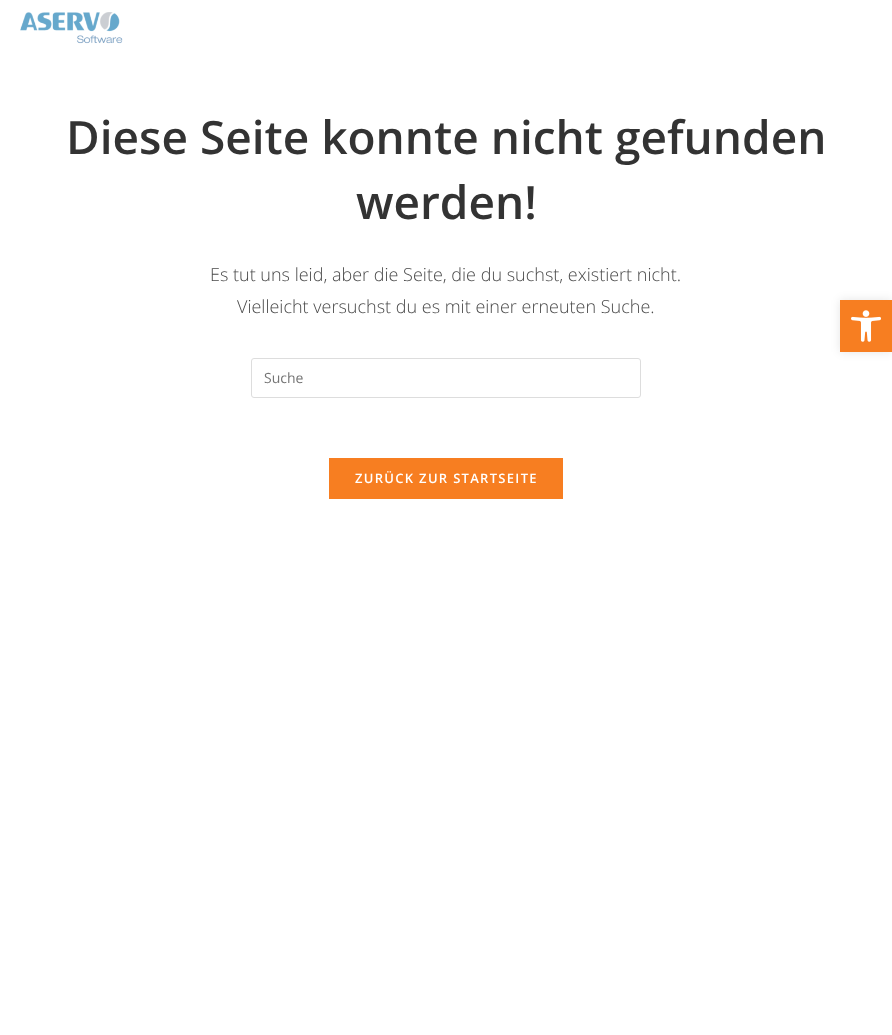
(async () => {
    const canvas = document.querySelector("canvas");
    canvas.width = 892;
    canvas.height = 1035;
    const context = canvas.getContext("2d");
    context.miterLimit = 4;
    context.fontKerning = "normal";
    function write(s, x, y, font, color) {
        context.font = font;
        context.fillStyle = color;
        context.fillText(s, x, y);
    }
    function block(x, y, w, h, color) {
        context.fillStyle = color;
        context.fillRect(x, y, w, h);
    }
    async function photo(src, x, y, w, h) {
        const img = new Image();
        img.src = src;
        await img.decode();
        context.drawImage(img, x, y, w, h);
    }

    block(0, 0, 892, 1035, "rgb(255, 255, 255)");
    await photo("media/1.png", 20, 12, 103, 32);
    write("Diese Seite konnte nicht gefunden", 66, 154, "600 46px Open Sans", "rgb(51, 51, 51)");
    write("werden!", 356, 219, "600 46px Open Sans", "rgb(51, 51, 51)");
    write("Es tut uns leid, aber die Seite, die du suchst, existiert nicht.", 210, 281, "300 18px Open Sans", "rgb(74, 74, 74)");
    write("Vielleicht versuchst du es mit einer erneuten Suche.", 237, 313, "300 18px Open Sans", "rgb(74, 74, 74)");
    context.beginPath();
    context.roundRect(251.5, 358.5, 389, 39, 2.5);
    context.strokeStyle = "rgb(221, 221, 221)";
    context.stroke();
    write("Suche", 264, 383, "14px Open Sans", "rgb(117, 117, 117)");
    block(329, 458, 234, 41, "rgb(247, 126, 33)");
    context.letterSpacing = "1.3px";
    write("ZURÜCK ZUR STARTSEITE", 355, 483, "600 13px Open Sans", "rgb(255, 255, 255)");
    context.fillStyle = "rgba(0, 0, 0, 0.1)";
    context.filter = "blur(5px)";
    context.beginPath();
    context.rect(840, 300, 52, 52);
    context.fill();
    context.filter = "none";
    block(840, 300, 52, 52, "rgb(247, 126, 33)");
    await photo("media/2.png", 851, 310, 30, 32);
})();
